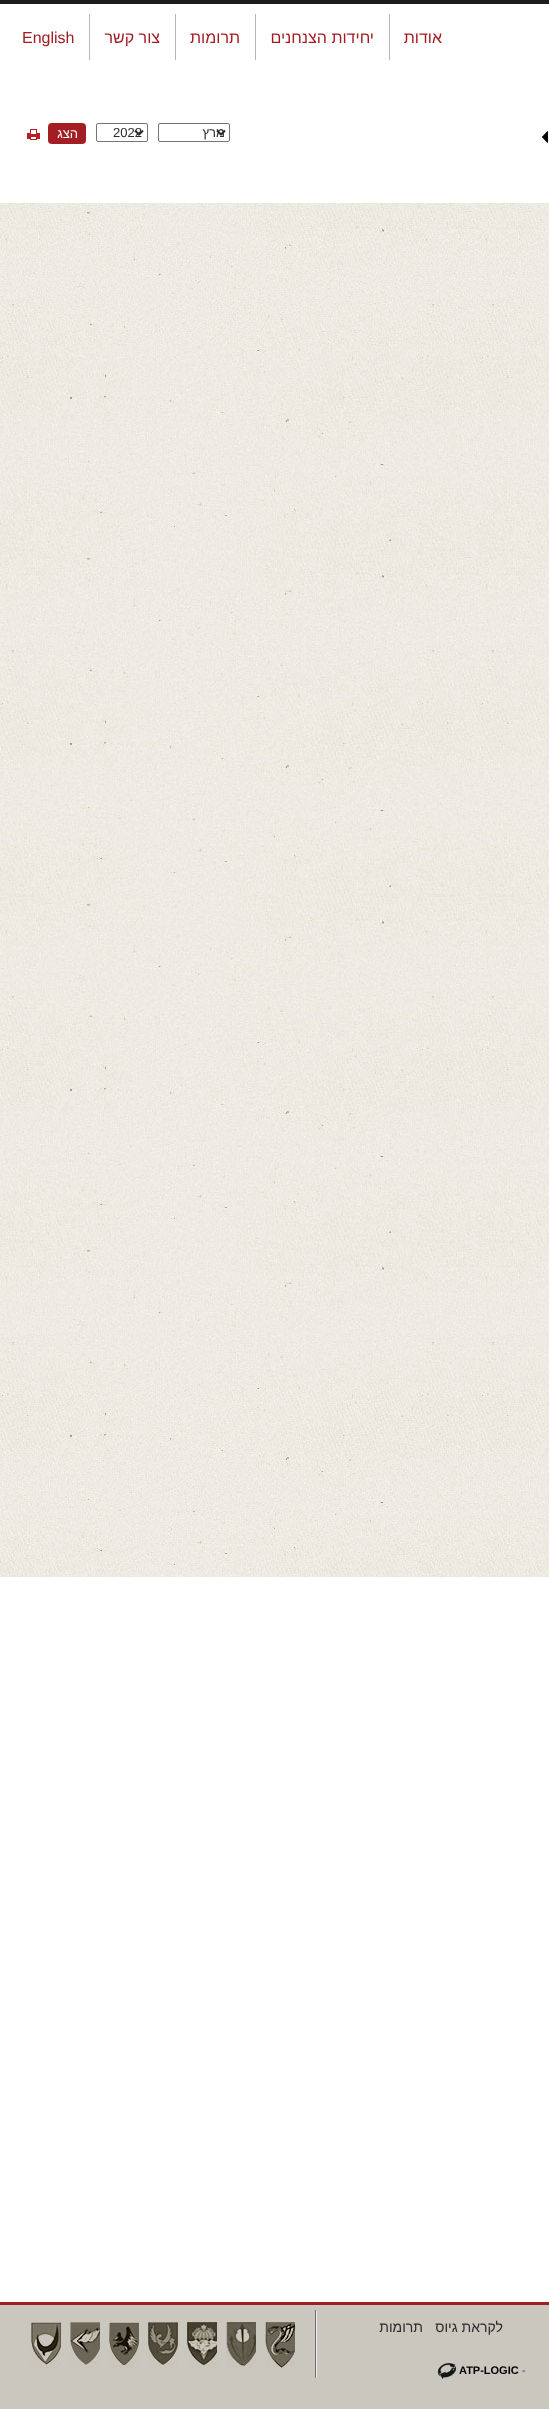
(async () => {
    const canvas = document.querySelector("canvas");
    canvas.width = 549;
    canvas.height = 2409;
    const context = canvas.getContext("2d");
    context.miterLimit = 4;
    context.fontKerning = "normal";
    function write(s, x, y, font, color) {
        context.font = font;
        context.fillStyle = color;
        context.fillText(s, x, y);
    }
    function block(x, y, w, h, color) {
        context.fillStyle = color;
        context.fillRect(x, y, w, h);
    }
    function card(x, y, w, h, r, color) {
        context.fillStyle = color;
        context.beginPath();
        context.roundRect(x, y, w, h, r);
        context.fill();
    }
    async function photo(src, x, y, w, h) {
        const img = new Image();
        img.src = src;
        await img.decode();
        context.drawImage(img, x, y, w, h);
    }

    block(0, 0, 549, 2409, "rgb(255, 255, 255)");
    await photo("media/1.png", 0, 203, 549, 1374);
    block(0, 0, 549, 4, "rgb(28, 28, 28)");
    block(389, 14, 1, 46, "rgb(182, 182, 182)");
    context.direction = "rtl";
    write("אודות", 442, 43, "16px Liberation Sans", "rgb(162, 28, 35)");
    block(255, 14, 1, 46, "rgb(182, 182, 182)");
    write("יחידות הצנחנים", 374, 43, "16px Liberation Sans", "rgb(162, 28, 35)");
    block(175, 14, 1, 46, "rgb(182, 182, 182)");
    write("תרומות", 240, 43, "16px Liberation Sans", "rgb(162, 28, 35)");
    block(89, 14, 1, 46, "rgb(182, 182, 182)");
    write("צור קשר", 160, 43, "16px Liberation Sans", "rgb(162, 28, 35)");
    context.direction = "ltr";
    write("English", 22, 43, "16px Liberation Sans", "rgb(162, 28, 35)");
    await photo("media/2.png", 542, 131, 6, 12);
    context.beginPath();
    context.roundRect(158.5, 123.5, 71, 18, 1.5);
    context.strokeStyle = "rgb(118, 118, 118)";
    context.stroke();
    context.beginPath();
    context.moveTo(217, 130.5);
    context.lineTo(221, 134.5);
    context.lineTo(225, 130.5);
    context.strokeStyle = "rgb(43, 43, 43)";
    context.lineWidth = 2;
    context.stroke();
    context.direction = "rtl";
    write("מרץ", 225, 137, "13px Liberation Sans", "rgb(43, 43, 43)");
    context.beginPath();
    context.roundRect(96.5, 123.5, 51, 18, 1.5);
    context.strokeStyle = "rgb(118, 118, 118)";
    context.lineWidth = 1;
    context.stroke();
    context.beginPath();
    context.moveTo(135, 130.5);
    context.lineTo(139, 134.5);
    context.lineTo(143, 130.5);
    context.strokeStyle = "rgb(43, 43, 43)";
    context.lineWidth = 2;
    context.stroke();
    context.direction = "ltr";
    write("2022", 113, 137, "13px Liberation Sans", "rgb(43, 43, 43)");
    card(48, 123, 38, 21, 4, "rgb(163, 29, 36)");
    context.direction = "rtl";
    write("הצג", 78, 138, "13px Liberation Sans", "rgb(255, 255, 255)");
    await photo("media/3.png", 27, 129, 13, 11);
    block(0, 2305, 549, 104, "rgb(202, 199, 190)");
    block(0, 2302, 549, 3, "rgb(160, 29, 35)");
    await photo("media/4.png", 315, 2310, 2, 68);
    write("לקראת גיוס", 503, 2332, "14px Liberation Sans", "rgb(43, 43, 43)");
    write("תרומות", 423, 2332, "14px Liberation Sans", "rgb(43, 43, 43)");
    context.direction = "ltr";
    write("-", 522, 2374, "11px Liberation Sans", "rgb(56, 44, 138)");
    write("ATP-LOGIC", 459, 2374, "bold 11px Liberation Sans", "rgb(0, 0, 0)");
    await photo("media/5.png", 438, 2363, 18, 16);
    await photo("media/6.png", 265, 2322, 30, 46);
    await photo("media/7.png", 226, 2322, 30, 46);
    await photo("media/8.png", 187, 2322, 30, 46);
    await photo("media/9.png", 148, 2322, 30, 46);
    await photo("media/10.png", 109, 2322, 30, 46);
    await photo("media/11.png", 70, 2322, 30, 46);
    await photo("media/12.png", 31, 2322, 30, 46);
})();
